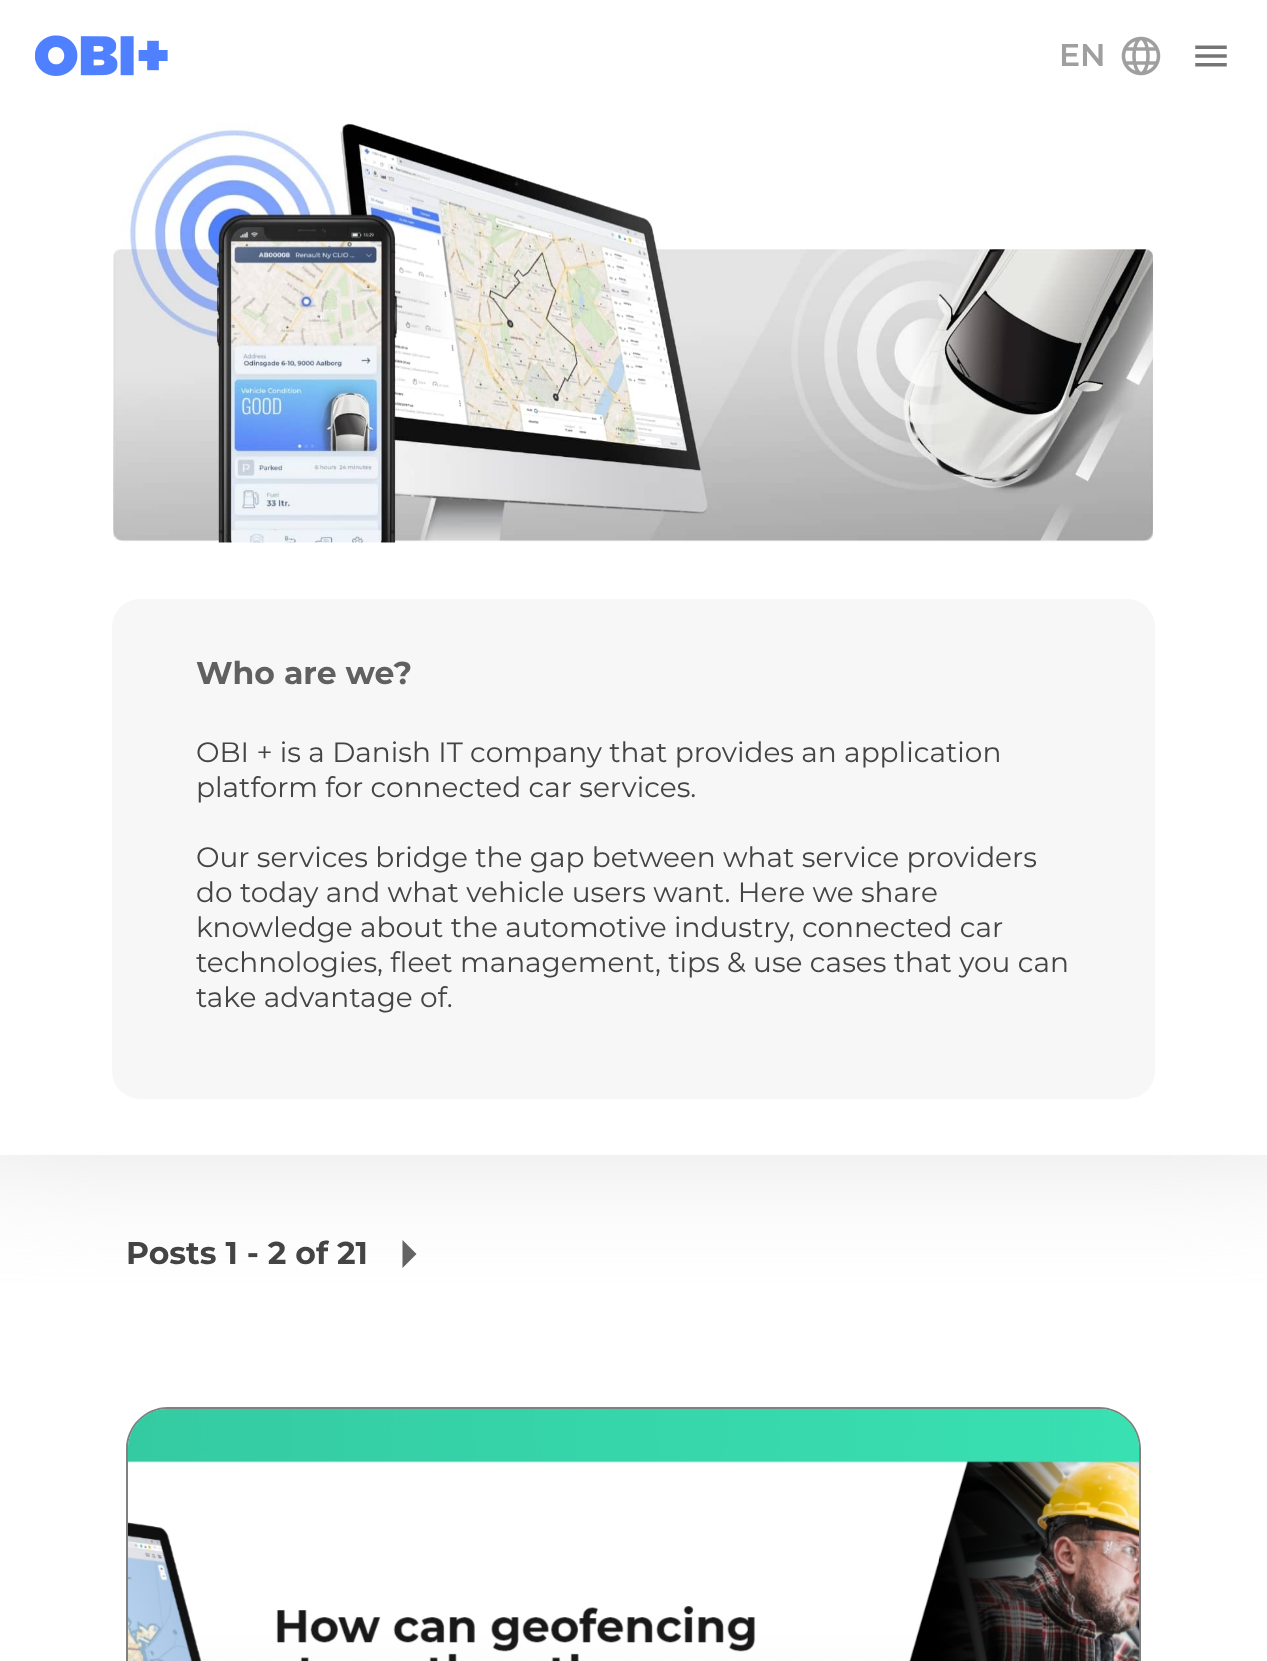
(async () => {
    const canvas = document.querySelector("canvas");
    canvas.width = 1267;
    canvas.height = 1661;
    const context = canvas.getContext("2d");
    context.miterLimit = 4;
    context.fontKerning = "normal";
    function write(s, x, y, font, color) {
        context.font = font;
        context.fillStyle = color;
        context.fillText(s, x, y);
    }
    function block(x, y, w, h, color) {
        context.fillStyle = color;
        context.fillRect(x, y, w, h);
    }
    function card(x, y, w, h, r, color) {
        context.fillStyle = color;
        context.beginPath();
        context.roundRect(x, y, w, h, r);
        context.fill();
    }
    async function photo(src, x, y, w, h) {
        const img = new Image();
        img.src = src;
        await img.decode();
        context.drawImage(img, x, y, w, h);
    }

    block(0, 0, 1267, 1661, "rgb(255, 255, 255)");
    context.fillStyle = "rgb(96, 96, 96)";
    context.beginPath();
    context.moveTo(402.5, 1268);
    context.lineTo(416.5, 1254);
    context.lineTo(402.5, 1240);
    context.closePath();
    context.fill();
    context.save();
    context.beginPath();
    context.rect(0, 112, 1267, 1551);
    context.clip();
    context.beginPath();
    context.rect(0, 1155, 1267, 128);
    context.clip();
    context.fillStyle = "rgb(204, 204, 204)";
    context.filter = "blur(87.5px)";
    context.beginPath();
    context.rect(-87, -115, 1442, 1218);
    context.fill();
    context.filter = "none";
    context.restore();
    await photo("media/1.png", 35, 35, 133, 41);
    write("EN", 1059, 66, "600 31.5px Montserrat", "rgb(159, 159, 159)");
    await photo("media/2.png", 1121, 36, 40, 40);
    await photo("media/3.png", 1195, 45, 32, 22);
    await photo("media/4.png", 113, 123, 1040, 420);
    card(112, 599, 1043, 500, 28, "rgb(247, 247, 247)");
    write("Who are we?", 196, 684, "bold 31.5px Montserrat", "rgb(96, 96, 96)");
    write("OBI + is a Danish IT company that provides an application", 196, 762, "28px Montserrat", "rgb(68, 68, 68)");
    write("platform for connected car services.", 196, 797, "28px Montserrat", "rgb(68, 68, 68)");
    write("Our services bridge the gap between what service providers", 196, 867, "28px Montserrat", "rgb(68, 68, 68)");
    write("do today and what vehicle users want. Here we share", 196, 902, "28px Montserrat", "rgb(68, 68, 68)");
    write("knowledge about the automotive industry, connected car", 196, 937, "28px Montserrat", "rgb(68, 68, 68)");
    write("technologies, fleet management, tips & use cases that you can", 196, 972, "28px Montserrat", "rgb(68, 68, 68)");
    write("take advantage of.", 196, 1007, "28px Montserrat", "rgb(68, 68, 68)");
    write("Posts 1 - 2 of 21", 126, 1264, "bold 31.5px Montserrat", "rgb(68, 68, 68)");
    context.fillStyle = "rgb(128, 128, 128)";
    context.beginPath();
    context.moveTo(168, 1407);
    context.lineTo(1099, 1407);
    context.bezierCurveTo(1122, 1407, 1141, 1426, 1141, 1449);
    context.lineTo(1141, 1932);
    context.lineTo(126, 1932);
    context.lineTo(126, 1449);
    context.bezierCurveTo(126, 1426, 145, 1407, 168, 1407);
    context.closePath();
    context.moveTo(168, 1409);
    context.lineTo(1099, 1409);
    context.bezierCurveTo(1121, 1409, 1139, 1427, 1139, 1449);
    context.lineTo(1139, 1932);
    context.lineTo(128, 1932);
    context.lineTo(128, 1449);
    context.bezierCurveTo(128, 1427, 146, 1409, 168, 1409);
    context.closePath();
    context.fill("evenodd");
    await photo("media/5.png", 128, 1409, 1012, 252);
})();
